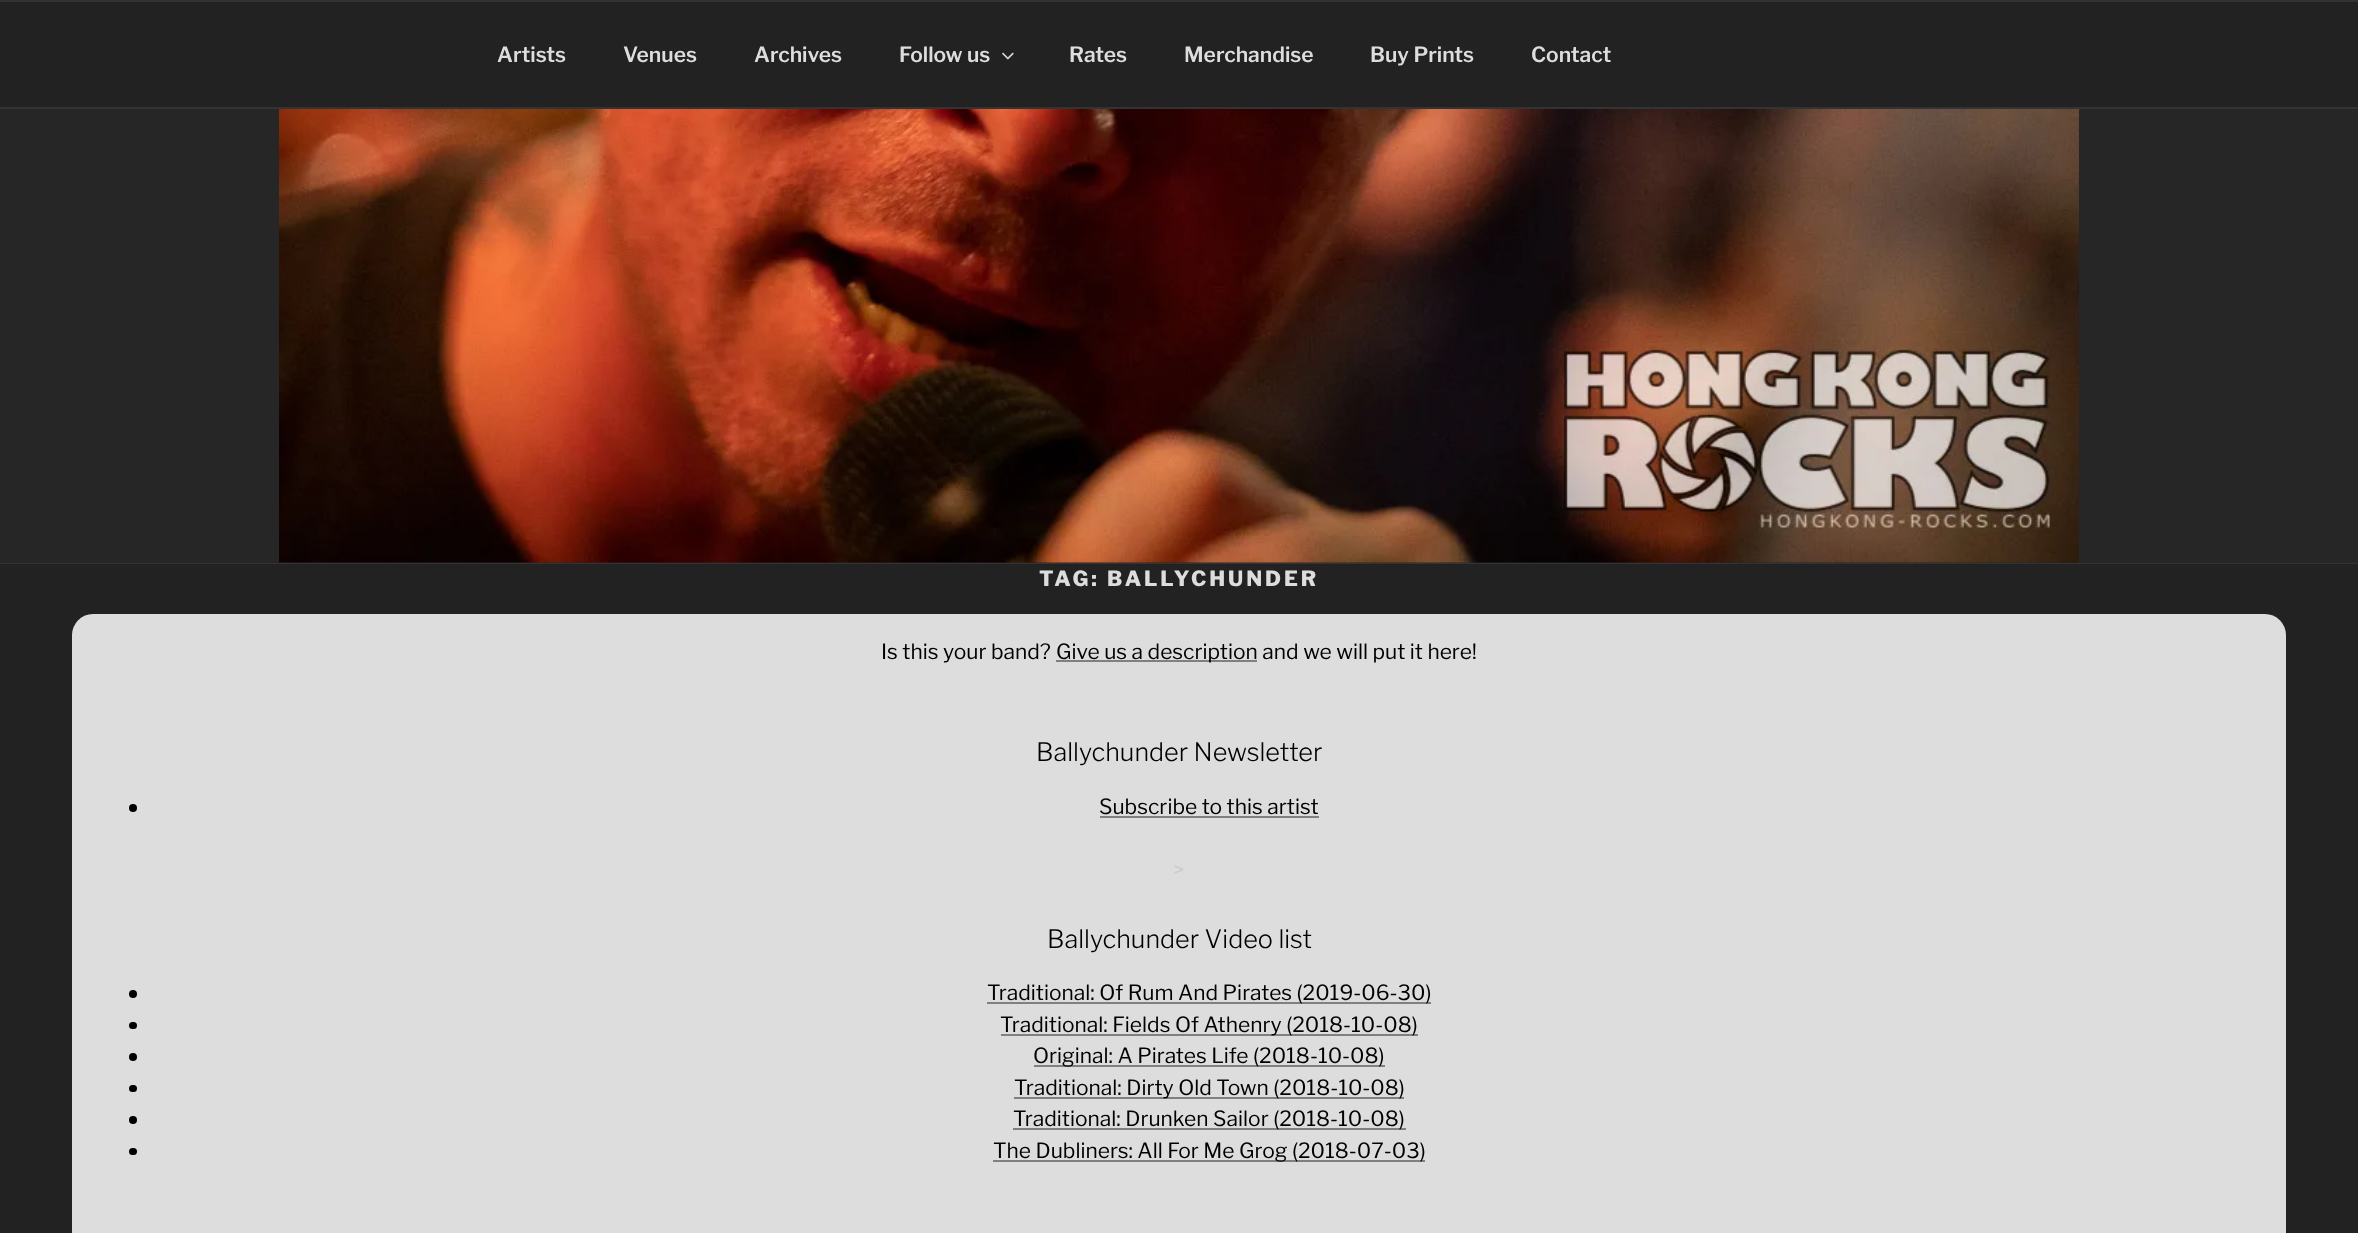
(async () => {
    const canvas = document.querySelector("canvas");
    canvas.width = 2358;
    canvas.height = 1233;
    const context = canvas.getContext("2d");
    context.miterLimit = 4;
    context.fontKerning = "normal";
    function write(s, x, y, font, color) {
        context.font = font;
        context.fillStyle = color;
        context.fillText(s, x, y);
    }
    function block(x, y, w, h, color) {
        context.fillStyle = color;
        context.fillRect(x, y, w, h);
    }
    function card(x, y, w, h, r, color) {
        context.fillStyle = color;
        context.beginPath();
        context.roundRect(x, y, w, h, r);
        context.fill();
    }
    async function photo(src, x, y, w, h) {
        const img = new Image();
        img.src = src;
        await img.decode();
        context.drawImage(img, x, y, w, h);
    }

    block(0, 0, 2358, 1233, "rgb(38, 38, 38)");
    block(0, 2, 2358, 105, "rgb(34, 34, 34)");
    block(0, 0, 2358, 2, "rgb(51, 51, 51)");
    block(0, 107, 2358, 2, "rgb(51, 51, 51)");
    write("Artists", 497, 62, "100 21px 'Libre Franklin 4'", "rgb(221, 221, 221)");
    write("Venues", 623, 62, "100 21px 'Libre Franklin 4'", "rgb(221, 221, 221)");
    write("Archives", 754, 62, "100 21px 'Libre Franklin 4'", "rgb(221, 221, 221)");
    write("Follow us", 899, 62, "100 21px 'Libre Franklin 4'", "rgb(221, 221, 221)");
    await photo("media/1.png", 1002, 52, 12, 8);
    write("Rates", 1069, 62, "100 21px 'Libre Franklin 4'", "rgb(221, 221, 221)");
    write("Merchandise", 1184, 62, "100 21px 'Libre Franklin 4'", "rgb(221, 221, 221)");
    write("Buy Prints", 1370, 62, "100 21px 'Libre Franklin 4'", "rgb(221, 221, 221)");
    write("Contact", 1531, 62, "100 21px 'Libre Franklin 4'", "rgb(221, 221, 221)");
    block(0, 563, 2358, 1, "rgb(51, 51, 51)");
    await photo("media/2.png", 279, 109, 1800, 454);
    block(0, 564, 2358, 669, "rgb(34, 34, 34)");
    context.letterSpacing = "2.9px";
    write("TAG: BALLYCHUNDER", 1039, 586, "100 21px Libre Franklin", "rgb(221, 221, 221)");
    card(72, 614, 2214, 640, 21, "rgb(221, 221, 221)");
    context.letterSpacing = "0px";
    write("Is this your band?", 881, 659, "100 21px 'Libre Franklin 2'", "rgb(0, 0, 0)");
    block(1056, 660, 201, 2, "rgb(128, 128, 128)");
    write("Give us a description and we will put it here!", 1056, 659, "100 21px 'Libre Franklin 2'", "rgb(0, 0, 0)");
    write("Ballychunder Newsletter", 1036, 761, "100 25.25px 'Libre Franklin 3'", "rgb(0, 0, 0)");
    context.beginPath();
    context.arc(133, 808, 4, 0, Math.PI * 2);
    context.fill();
    write("Subscribe to this artist", 1099, 814, "100 21px 'Libre Franklin 2'", "rgb(0, 0, 0)");
    block(1100, 816, 219, 2, "rgb(128, 128, 128)");
    write(">", 1173, 877, "100 21px 'Libre Franklin 2'", "rgb(204, 204, 204)");
    write("Ballychunder Video list", 1047, 948, "100 25.25px 'Libre Franklin 3'", "rgb(0, 0, 0)");
    context.beginPath();
    context.arc(133, 994, 4, 0, Math.PI * 2);
    context.fill();
    block(987, 1002, 444, 2, "rgb(128, 128, 128)");
    write("Traditional: Of Rum And Pirates (2019-06-30)", 987, 1000, "100 21px 'Libre Franklin 2'", "rgb(0, 0, 0)");
    card(129, 1022, 8, 7, 3.5, "rgb(0, 0, 0)");
    block(1001, 1034, 417, 2, "rgb(128, 128, 128)");
    write("Traditional: Fields Of Athenry (2018-10-08)", 1000, 1032, "100 21px 'Libre Franklin 2'", "rgb(0, 0, 0)");
    context.beginPath();
    context.arc(133, 1057, 4, 0, Math.PI * 2);
    context.fill();
    block(1034, 1065, 351, 2, "rgb(128, 128, 128)");
    write("Original: A Pirates Life (2018-10-08)", 1033, 1063, "100 21px 'Libre Franklin 2'", "rgb(0, 0, 0)");
    card(129, 1085, 8, 7, 3.5, "rgb(0, 0, 0)");
    block(1014, 1097, 390, 2, "rgb(128, 128, 128)");
    write("Traditional: Dirty Old Town (2018-10-08)", 1014, 1095, "100 21px 'Libre Franklin 2'", "rgb(0, 0, 0)");
    context.beginPath();
    context.arc(133, 1120, 4, 0, Math.PI * 2);
    context.fill();
    block(1013, 1128, 393, 2, "rgb(128, 128, 128)");
    write("Traditional: Drunken Sailor (2018-10-08)", 1013, 1126, "100 21px 'Libre Franklin 2'", "rgb(0, 0, 0)");
    card(129, 1148, 8, 7, 3.5, "rgb(0, 0, 0)");
    block(993, 1160, 432, 2, "rgb(128, 128, 128)");
    write("The Dubliners: All For Me Grog (2018-07-03)", 993, 1158, "100 21px 'Libre Franklin 2'", "rgb(0, 0, 0)");
})();
